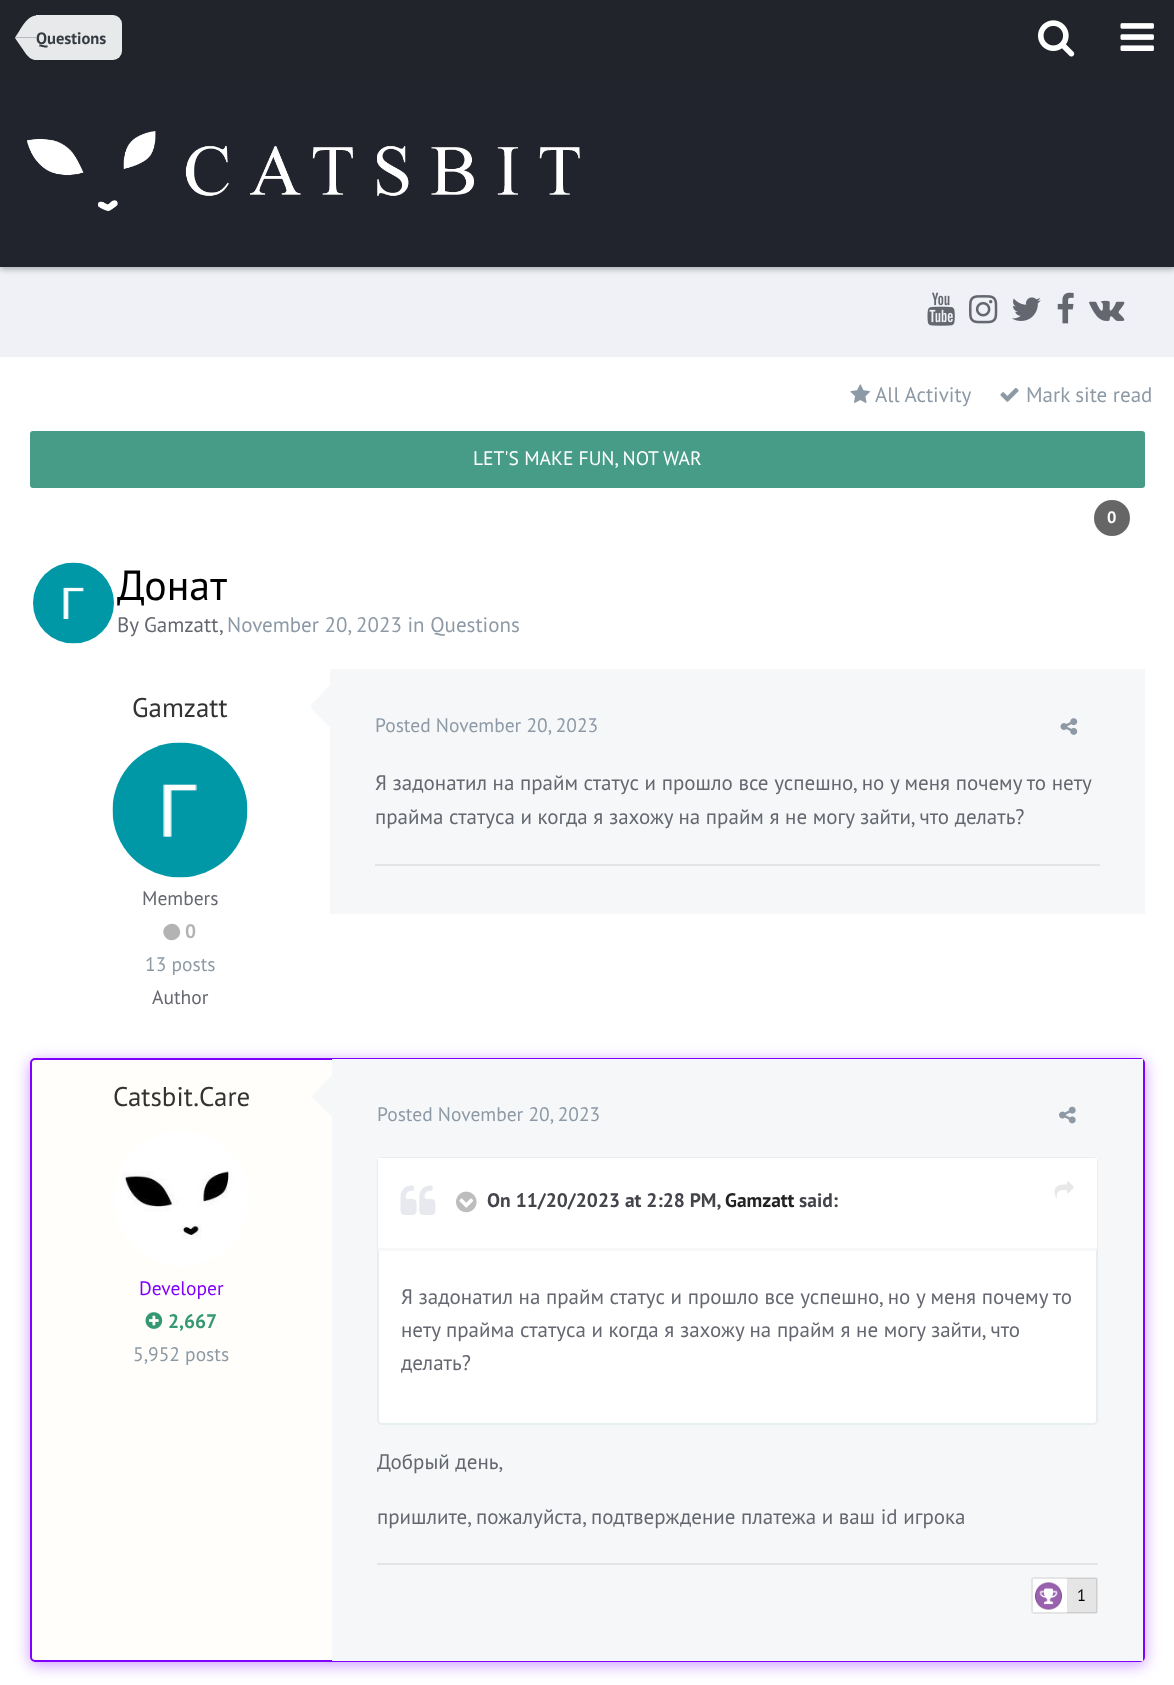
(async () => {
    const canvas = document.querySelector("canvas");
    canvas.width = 1174;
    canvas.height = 1685;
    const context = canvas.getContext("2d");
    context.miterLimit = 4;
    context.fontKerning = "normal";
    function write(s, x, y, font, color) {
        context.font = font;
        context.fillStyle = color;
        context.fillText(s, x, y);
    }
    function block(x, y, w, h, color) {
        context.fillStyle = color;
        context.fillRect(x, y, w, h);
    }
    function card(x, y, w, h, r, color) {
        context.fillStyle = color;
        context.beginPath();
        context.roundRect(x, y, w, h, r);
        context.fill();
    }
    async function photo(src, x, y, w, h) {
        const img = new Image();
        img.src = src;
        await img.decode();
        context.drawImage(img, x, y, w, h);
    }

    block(0, 0, 1174, 1685, "rgb(255, 255, 255)");
    block(0, 267, 1174, 90, "rgb(239, 241, 247)");
    context.fillStyle = "rgba(0, 0, 0, 0.3)";
    context.filter = "blur(3px)";
    context.beginPath();
    context.rect(0, 2, 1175, 267);
    context.fill();
    context.filter = "none";
    block(0, 75, 1174, 192, "rgb(34, 36, 45)");
    block(0, 0, 1174, 75, "rgb(33, 36, 43)");
    context.fillStyle = "rgb(232, 233, 235)";
    context.beginPath();
    context.roundRect(36, 15, 86, 45, [0, 9, 9, 0]);
    context.fill();
    context.beginPath();
    context.moveTo(15, 37.5);
    context.lineTo(36, 37.5);
    context.lineTo(36, 60);
    context.bezierCurveTo(33, 60, 29.5, 58.5, 26, 54);
    context.lineTo(15, 38);
    context.closePath();
    context.fill();
    context.beginPath();
    context.moveTo(36, 15.5);
    context.lineTo(36, 37.5);
    context.lineTo(15, 37.5);
    context.lineTo(19, 31.5);
    context.bezierCurveTo(22.5, 25.5, 28.5, 15.5, 36, 15.5);
    context.closePath();
    context.fill();
    write("Questions", 36, 44, "bold 16.5px PT Sans", "rgb(53, 60, 65)");
    await photo("media/1.png", 1038, 20, 37, 37);
    await photo("media/2.png", 1120, 23, 34, 28);
    await photo("media/3.png", 27, 131, 553, 80);
    await photo("media/4.png", 927, 292, 28, 34);
    await photo("media/5.png", 969, 295, 29, 29);
    await photo("media/6.png", 1012, 297, 29, 24);
    await photo("media/7.png", 1057, 292, 17, 32);
    await photo("media/8.png", 1089, 300, 36, 21);
    await photo("media/9.png", 850, 384, 20, 19);
    write("All Activity", 875, 402, "21px PT Sans", "rgb(141, 154, 166)");
    await photo("media/10.png", 1000, 388, 19, 14);
    write("Mark site read", 1026, 402, "21px PT Sans", "rgb(141, 154, 166)");
    card(30, 431, 1115, 57, 3, "rgb(71, 156, 135)");
    write("LET'S MAKE FUN, NOT WAR", 473, 465, "19.5px PT Sans", "rgb(255, 255, 255)");
    context.fillStyle = "rgb(102, 102, 102)";
    context.beginPath();
    context.arc(1112, 518, 18, 0, Math.PI * 2);
    context.fill();
    write("0", 1107, 523, "bold 16.5px PT Sans", "rgb(255, 255, 255)");
    await photo("media/11.png", 33, 562, 81, 82);
    write("Донат", 117, 600, "42px PT Sans", "rgb(0, 0, 0)");
    write("By Gamzatt", 117, 632, "21px PT Sans", "rgb(100, 103, 111)");
    write(",", 219, 632, "21px PT Sans", "rgb(100, 103, 111)");
    write("November 20, 2023 in Questions", 227, 632, "21px PT Sans", "rgb(141, 154, 166)");
    write("Gamzatt", 132, 717, "27px PT Sans", "rgb(51, 51, 51)");
    await photo("media/12.png", 112, 742, 136, 136);
    write("Members", 142, 905, "19.5px PT Sans", "rgb(100, 103, 111)");
    context.fillStyle = "rgb(179, 179, 179)";
    context.beginPath();
    context.moveTo(179, 928);
    context.bezierCurveTo(184.5, 937.5, 170, 945.5, 164.5, 936);
    context.bezierCurveTo(159, 927, 173.5, 918.5, 179, 928);
    context.closePath();
    context.fill();
    write("0", 185, 938, "bold 19.5px PT Sans", "rgb(179, 179, 179)");
    write("13 posts", 145, 971, "19.5px PT Sans", "rgb(141, 154, 166)");
    write("Author", 152, 1004, "19.5px PT Sans", "rgb(100, 103, 111)");
    block(330, 669, 815, 245, "rgb(246, 247, 249)");
    context.beginPath();
    context.moveTo(342, 682);
    context.lineTo(342, 722);
    context.bezierCurveTo(342, 724, 344, 732, 340, 734);
    context.bezierCurveTo(337, 735, 334, 731, 332, 729);
    context.lineTo(312, 709);
    context.bezierCurveTo(309, 705, 314, 702, 316, 700);
    context.lineTo(332, 683);
    context.bezierCurveTo(334, 682, 337, 677, 341, 679);
    context.bezierCurveTo(342, 680, 342, 681, 342, 682);
    context.closePath();
    context.fill();
    write("Posted November 20, 2023", 375, 732, "19.5px PT Sans", "rgb(141, 154, 166)");
    await photo("media/13.png", 1060, 718, 18, 17);
    write("Я задонатил на прайм статус и прошло все успешно, но у меня почему то нету", 375, 790, "21px PT Sans", "rgb(100, 103, 111)");
    write("прайма статуса и когда я захожу на прайм я не могу зайти, что делать?", 375, 824, "21px PT Sans", "rgb(100, 103, 111)");
    block(375, 864, 725, 2, "rgb(228, 228, 230)");
    context.fillStyle = "rgba(128, 0, 255, 0.4)";
    context.filter = "blur(7.5px)";
    context.beginPath();
    context.roundRect(30, 1061, 1115, 604, 5);
    context.fill();
    context.filter = "none";
    context.fillStyle = "rgb(255, 254, 250)";
    context.beginPath();
    context.roundRect(31, 1059, 1113, 602, 4);
    context.fill();
    context.strokeStyle = "rgb(128, 0, 255)";
    context.lineWidth = 2;
    context.stroke();
    write("Catsbit.Care", 113, 1106, "27px PT Sans", "rgb(51, 51, 51)");
    await photo("media/14.png", 114, 1131, 135, 135);
    write("Developer", 139, 1295, "19.5px PT Sans", "rgb(128, 0, 255)");
    await photo("media/15.png", 145, 1312, 18, 17);
    write("2,667", 168, 1328, "bold 19.5px PT Sans", "rgb(52, 153, 115)");
    write("5,952 posts", 133, 1361, "19.5px PT Sans", "rgb(141, 154, 166)");
    block(332, 1059, 811, 602, "rgb(246, 247, 249)");
    context.beginPath();
    context.moveTo(344, 1072);
    context.lineTo(344, 1112);
    context.bezierCurveTo(344, 1114, 345, 1122, 342, 1124);
    context.bezierCurveTo(339, 1125, 336, 1121, 334, 1119);
    context.lineTo(314, 1099);
    context.bezierCurveTo(310, 1095, 316, 1092, 318, 1090);
    context.lineTo(334, 1073);
    context.bezierCurveTo(336, 1072, 339, 1067, 342, 1069);
    context.bezierCurveTo(343, 1070, 344, 1071, 344, 1072);
    context.closePath();
    context.fill();
    write("Posted November 20, 2023", 377, 1121, "19.5px PT Sans", "rgb(141, 154, 166)");
    await photo("media/16.png", 1059, 1106, 17, 18);
    context.fillStyle = "rgb(255, 255, 255)";
    context.beginPath();
    context.roundRect(378, 1158, 719, 266, 4);
    context.fill();
    context.strokeStyle = "rgb(230, 238, 240)";
    context.stroke();
    block(378, 1158, 719, 90, "rgb(255, 255, 255)");
    block(378, 1248, 719, 3, "rgb(246, 247, 249)");
    await photo("media/17.png", 400, 1185, 36, 30);
    await photo("media/18.png", 456, 1191, 21, 22);
    write("On 11/20/2023 at 2:28 PM,", 487, 1207, "bold 19.5px PT Sans", "rgb(67, 69, 74)");
    write("Gamzatt", 725, 1207, "bold 19.5px PT Sans", "rgb(34, 34, 34)");
    write("said:", 799, 1207, "bold 19.5px PT Sans", "rgb(67, 69, 74)");
    await photo("media/19.png", 1054, 1181, 20, 17);
    write("Я задонатил на прайм статус и прошло все успешно, но у меня почему то", 401, 1304, "21px PT Sans", "rgb(100, 103, 111)");
    write("нету прайма статуса и когда я захожу на прайм я не могу зайти, что", 401, 1337, "21px PT Sans", "rgb(100, 103, 111)");
    write("делать?", 401, 1370, "21px PT Sans", "rgb(100, 103, 111)");
    write("Добрый день,", 377, 1469, "21px PT Sans", "rgb(100, 103, 111)");
    write("пришлите, пожалуйста, подтверждение платежа и ваш id игрока", 377, 1524, "21px PT Sans", "rgb(100, 103, 111)");
    block(377, 1563, 721, 2, "rgb(228, 228, 230)");
    card(1031, 1577, 67, 37, 3, "rgb(255, 255, 255)");
    context.beginPath();
    context.roundRect(1032, 1578, 65, 35, 2);
    context.strokeStyle = "rgba(0, 0, 0, 0.1)";
    context.stroke();
    await photo("media/20.png", 1035, 1582, 27, 28);
    block(1067, 1578, 30, 35, "rgba(0, 0, 0, 0.1)");
    write("1", 1077, 1601, "16.5px PT Sans", "rgb(0, 0, 0)");
})();
